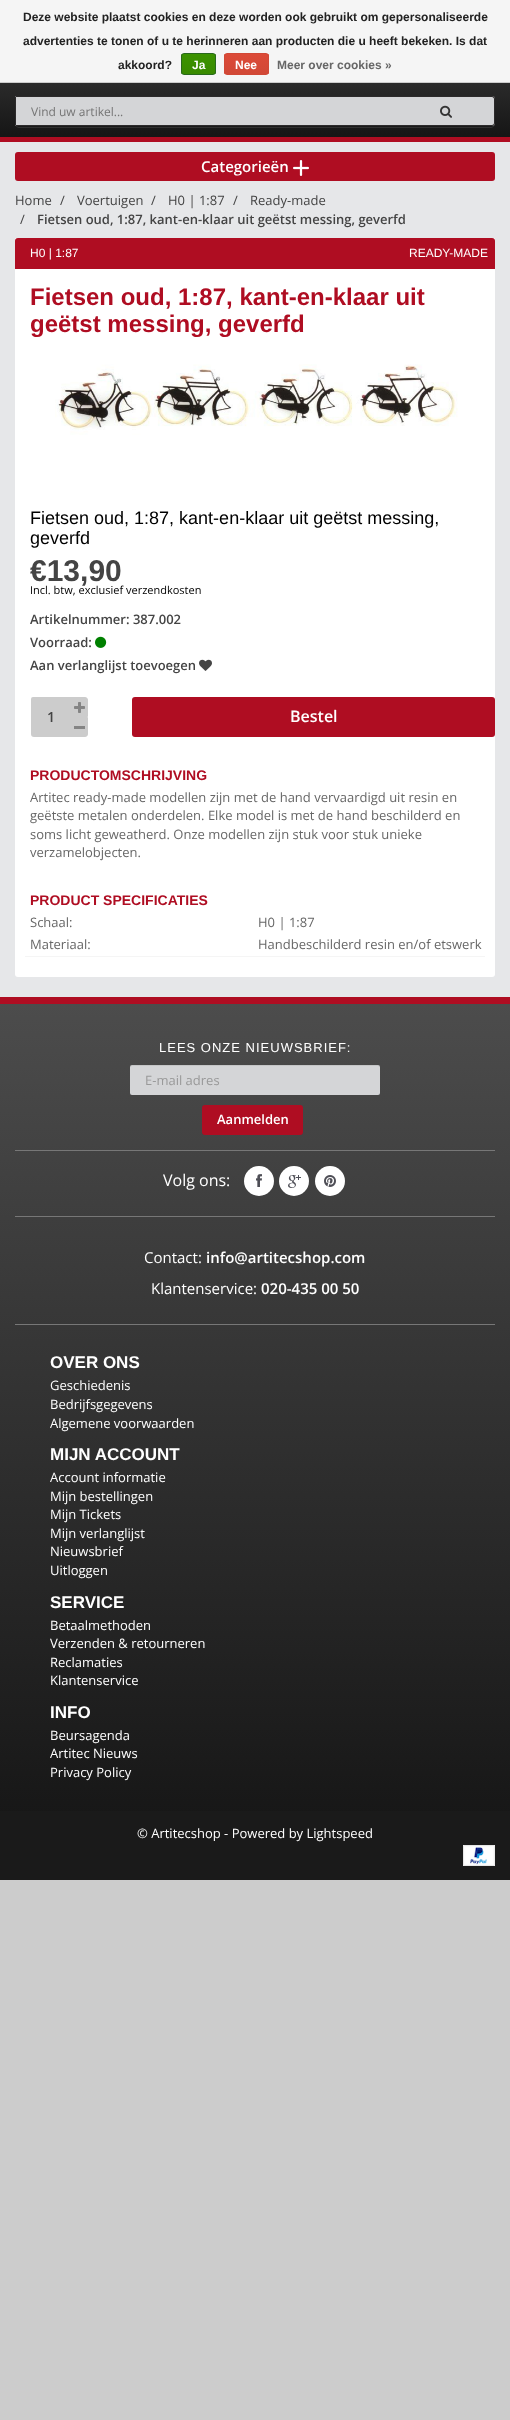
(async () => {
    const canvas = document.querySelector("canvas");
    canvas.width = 510;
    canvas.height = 2420;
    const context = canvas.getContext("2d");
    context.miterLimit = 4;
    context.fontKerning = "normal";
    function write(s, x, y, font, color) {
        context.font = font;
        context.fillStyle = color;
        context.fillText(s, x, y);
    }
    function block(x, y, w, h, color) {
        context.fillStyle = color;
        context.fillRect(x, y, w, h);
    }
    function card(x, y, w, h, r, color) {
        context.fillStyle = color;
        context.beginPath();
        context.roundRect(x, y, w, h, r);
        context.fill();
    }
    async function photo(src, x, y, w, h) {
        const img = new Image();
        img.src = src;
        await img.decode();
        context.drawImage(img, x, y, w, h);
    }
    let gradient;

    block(0, 0, 510, 2420, "rgb(204, 204, 204)");
    block(0, 0, 510, 82, "rgb(245, 245, 245)");
    write("Deze website plaatst cookies en deze worden ook gebruikt om gepersonaliseerde", 23, 21, "bold 12px Liberation Sans", "rgb(34, 34, 34)");
    write("advertenties te tonen of u te herinneren aan producten die u heeft bekeken. Is dat", 23, 45, "bold 12px Liberation Sans", "rgb(34, 34, 34)");
    write("akkoord?", 118, 69, "bold 12px Liberation Sans", "rgb(34, 34, 34)");
    context.save();
    context.beginPath();
    context.roundRect(181, 53, 35, 22, 3);
    context.clip();
    gradient = context.createLinearGradient(199, 54, 199, 74);
    gradient.addColorStop(0, "rgb(60, 147, 0)");
    gradient.addColorStop(1, "rgb(57, 138, 0)");
    context.fillStyle = gradient;
    context.fillRect(181, 54, 35, 20);
    context.restore();
    context.beginPath();
    context.roundRect(181.5, 53.5, 34, 21, 2.5);
    context.strokeStyle = "rgb(41, 105, 29)";
    context.stroke();
    write("Ja", 192, 69, "bold 12px Liberation Sans", "rgb(255, 255, 255)");
    context.save();
    context.beginPath();
    context.roundRect(224, 53, 45, 22, 3);
    context.clip();
    gradient = context.createLinearGradient(247, 54, 247, 74);
    gradient.addColorStop(0, "rgb(220, 74, 56)");
    gradient.addColorStop(1, "rgb(209, 72, 54)");
    context.fillStyle = gradient;
    context.fillRect(224, 54, 45, 20);
    context.restore();
    context.beginPath();
    context.roundRect(224.5, 53.5, 44, 21, 2.5);
    context.strokeStyle = "rgb(209, 72, 54)";
    context.stroke();
    write("Nee", 235, 69, "bold 12px Liberation Sans", "rgb(255, 255, 255)");
    write("Meer over cookies »", 277, 69, "bold 12px Liberation Sans", "rgb(103, 103, 103)");
    block(0, 142, 510, 855, "rgb(230, 231, 233)");
    gradient = context.createLinearGradient(255, 0, 255, 142);
    gradient.addColorStop(0, "rgb(76, 76, 76)");
    gradient.addColorStop(1, "rgb(19, 19, 19)");
    context.fillStyle = gradient;
    context.fillRect(0, 83, 510, 54);
    block(0, 137, 510, 5, "rgb(175, 13, 34)");
    context.fillStyle = "rgb(48, 48, 48)";
    context.beginPath();
    context.moveTo(15, 122);
    context.lineTo(15, 123);
    context.bezierCurveTo(15, 126, 17, 128, 20, 128);
    context.lineTo(490, 128);
    context.bezierCurveTo(493, 128, 495, 126, 495, 123);
    context.lineTo(495, 122);
    context.bezierCurveTo(495, 125, 493, 127, 490, 127);
    context.lineTo(20, 127);
    context.bezierCurveTo(17, 127, 15, 125, 15, 122);
    context.closePath();
    context.fill();
    context.fillStyle = "rgb(212, 213, 215)";
    context.beginPath();
    context.roundRect(15, 96, 384, 30, [2, 0, 0, 2]);
    context.fill();
    block(16, 96, 383, 1, "rgb(44, 42, 43)");
    block(16, 125, 383, 1, "rgb(44, 42, 43)");
    block(15, 97, 1, 28, "rgb(44, 42, 43)");
    write("Vind uw artikel...", 31, 116, "12px Open Sans", "rgb(117, 117, 117)");
    context.fillStyle = "rgb(212, 213, 215)";
    context.beginPath();
    context.roundRect(399, 96, 96, 30, [0, 3, 3, 0]);
    context.fill();
    context.fillStyle = "rgb(44, 42, 43)";
    context.beginPath();
    context.moveTo(399, 96);
    context.lineTo(492, 96);
    context.bezierCurveTo(494, 96, 495, 97, 495, 99);
    context.lineTo(495, 123);
    context.bezierCurveTo(495, 125, 494, 126, 492, 126);
    context.lineTo(399, 126);
    context.closePath();
    context.moveTo(399, 97);
    context.lineTo(492, 97);
    context.bezierCurveTo(493, 97, 494, 98, 494, 99);
    context.lineTo(494, 123);
    context.bezierCurveTo(494, 124, 493, 125, 492, 125);
    context.lineTo(399, 125);
    context.closePath();
    context.fill("evenodd");
    await photo("media/1.png", 440, 105, 12, 13);
    card(15, 152, 480, 29, 3, "rgb(175, 13, 34)");
    write("Categorieën", 201, 172, "600 15px Open Sans", "rgb(255, 255, 255)");
    await photo("media/2.png", 293, 160, 16, 16);
    write("Home", 15, 205, "13px Open Sans", "rgb(68, 68, 68)");
    write("/", 60, 205, "13px Open Sans", "rgb(68, 68, 68)");
    write("Voertuigen", 77, 205, "13px Open Sans", "rgb(68, 68, 68)");
    write("/", 151, 205, "13px Open Sans", "rgb(68, 68, 68)");
    write("H0 | 1:87", 168, 205, "13px Open Sans", "rgb(68, 68, 68)");
    write("/", 233, 205, "13px Open Sans", "rgb(68, 68, 68)");
    write("Ready-made", 250, 205, "13px Open Sans", "rgb(68, 68, 68)");
    write("/", 20, 224, "13px Open Sans", "rgb(68, 68, 68)");
    write("Fietsen oud, 1:87, kant-en-klaar uit geëtst messing, geverfd", 37, 224, "600 13px Open Sans", "rgb(68, 68, 68)");
    context.fillStyle = "rgb(255, 255, 255)";
    context.beginPath();
    context.roundRect(15, 238, 480, 739, [0, 0, 3, 3]);
    context.fill();
    context.fillStyle = "rgb(175, 13, 34)";
    context.beginPath();
    context.roundRect(15, 238, 480, 31, [3, 3, 0, 0]);
    context.fill();
    write("H0 | 1:87", 30, 257, "12px Liberation Sans", "rgb(255, 255, 255)");
    write("READY-MADE", 409, 257, "12px Liberation Sans", "rgb(255, 255, 255)");
    write("Fietsen oud, 1:87, kant-en-klaar uit", 30, 305, "bold 24px Liberation Sans", "rgb(175, 13, 34)");
    write("geëtst messing, geverfd", 30, 332, "bold 24px Liberation Sans", "rgb(175, 13, 34)");
    await photo("media/3.png", 55, 364, 403, 71);
    write("Fietsen oud, 1:87, kant-en-klaar uit geëtst messing,", 30, 524, "18px Liberation Sans", "rgb(0, 0, 0)");
    write("geverfd", 30, 544, "18px Liberation Sans", "rgb(0, 0, 0)");
    write("€13,90", 30, 581, "bold 30px Liberation Sans", "rgb(68, 68, 68)");
    write("Incl. btw, exclusief verzendkosten", 30, 594, "11px Open Sans", "rgb(0, 0, 0)");
    write("Artikelnummer: 387.002", 30, 624, "600 13px Open Sans", "rgb(68, 68, 68)");
    write("Voorraad:", 30, 647, "600 13px Open Sans", "rgb(68, 68, 68)");
    await photo("media/4.png", 95, 636, 12, 12);
    write("Aan verlanglijst toevoegen", 30, 670, "600 13px Open Sans", "rgb(68, 68, 68)");
    await photo("media/5.png", 199, 659, 13, 12);
    context.fillStyle = "rgb(204, 204, 204)";
    context.beginPath();
    context.roundRect(32.5, 698.5, 37, 37, [0.5, 0, 0, 1.5]);
    context.fill();
    context.strokeStyle = "rgb(204, 204, 204)";
    context.lineWidth = 3;
    context.stroke();
    write("1", 47, 722, "600 14px Open Sans", "rgb(68, 68, 68)");
    context.fillStyle = "rgb(204, 204, 204)";
    context.beginPath();
    context.roundRect(70.5, 697.5, 17, 19, [0, 2.5, 0, 0]);
    context.fill();
    context.lineWidth = 1;
    context.stroke();
    await photo("media/6.png", 74, 702, 11, 11);
    context.beginPath();
    context.roundRect(70.5, 717.5, 17, 19, [0, 0, 2.5, 0]);
    context.fill();
    context.stroke();
    block(74, 726, 11, 3, "rgb(132, 132, 132)");
    card(132, 697, 363, 40, 3, "rgb(175, 13, 34)");
    write("Bestel", 290, 722, "600 16px Open Sans", "rgb(255, 255, 255)");
    block(25, 956, 460, 1, "rgb(245, 245, 245)");
    write("PRODUCTOMSCHRIJVING", 30, 780, "bold 14px Liberation Sans", "rgb(175, 13, 34)");
    write("Artitec ready-made modellen zijn met de hand vervaardigd uit resin en", 30, 802, "13px Open Sans", "rgb(103, 103, 103)");
    write("geëtste metalen onderdelen. Elke model is met de hand beschilderd en", 30, 820, "13px Open Sans", "rgb(103, 103, 103)");
    write("soms licht geweatherd. Onze modellen zijn stuk voor stuk unieke", 30, 839, "13px Open Sans", "rgb(103, 103, 103)");
    write("verzamelobjecten.", 30, 857, "13px Open Sans", "rgb(103, 103, 103)");
    write("PRODUCT SPECIFICATIES", 30, 905, "bold 14px Liberation Sans", "rgb(175, 13, 34)");
    write("Schaal:", 30, 927, "13px Open Sans", "rgb(103, 103, 103)");
    write("H0 | 1:87", 258, 927, "13px Open Sans", "rgb(103, 103, 103)");
    write("Materiaal:", 30, 949, "13px Open Sans", "rgb(103, 103, 103)");
    write("Handbeschilderd resin en/of etswerk", 258, 949, "13px Open Sans", "rgb(103, 103, 103)");
    gradient = context.createLinearGradient(255, 1004, 255, 1880);
    gradient.addColorStop(0, "rgb(76, 76, 76)");
    gradient.addColorStop(1, "rgb(19, 19, 19)");
    context.fillStyle = gradient;
    context.fillRect(0, 1004, 510, 807);
    block(0, 997, 510, 7, "rgb(175, 13, 34)");
    block(15, 1216, 480, 1, "rgb(119, 119, 119)");
    context.letterSpacing = "1px";
    write("LEES ONZE NIEUWSBRIEF:", 159, 1052, "13px Liberation Sans", "rgb(255, 255, 255)");
    card(130, 1065, 250, 30, 2, "rgb(212, 213, 215)");
    context.fillStyle = "rgba(0, 0, 0, 0.07)";
    context.beginPath();
    context.moveTo(132, 1066);
    context.lineTo(378, 1066);
    context.bezierCurveTo(379, 1066, 380, 1067, 380, 1068);
    context.bezierCurveTo(380, 1067, 380, 1065, 378, 1065);
    context.lineTo(132, 1065);
    context.bezierCurveTo(130, 1065, 130, 1067, 130, 1068);
    context.bezierCurveTo(130, 1067, 131, 1066, 132, 1066);
    context.closePath();
    context.fill();
    context.letterSpacing = "0px";
    write("E-mail adres", 145, 1085, "13px Open Sans", "rgb(153, 153, 153)");
    card(202, 1105, 101, 30, 3, "rgb(175, 13, 34)");
    write("Aanmelden", 217, 1124, "600 13px Open Sans", "rgb(255, 255, 255)");
    block(15, 1150, 480, 1, "rgb(119, 119, 119)");
    write("Volg ons:", 163, 1186, "16px Open Sans", "rgb(255, 255, 255)");
    context.beginPath();
    context.arc(259, 1181, 15, 0, Math.PI * 2);
    context.fill();
    await photo("media/7.png", 256, 1174, 6, 13);
    context.beginPath();
    context.arc(294, 1181, 15, 0, Math.PI * 2);
    context.fill();
    await photo("media/8.png", 288, 1175, 13, 13);
    context.beginPath();
    context.arc(330, 1181, 15, 0, Math.PI * 2);
    context.fill();
    await photo("media/9.png", 324, 1175, 12, 12);
    block(15, 1324, 480, 1, "rgb(119, 119, 119)");
    write("Contact:", 144, 1263, "15px Open Sans", "rgb(255, 255, 255)");
    write("info@artitecshop.com", 206, 1263, "600 15px Open Sans", "rgb(255, 255, 255)");
    write("Klantenservice:", 151, 1294, "15px Open Sans", "rgb(255, 255, 255)");
    write("020-435 00 50", 261, 1294, "600 15px Open Sans", "rgb(255, 255, 255)");
    write("OVER ONS", 50, 1368, "bold 17px Liberation Sans", "rgb(255, 255, 255)");
    write("Geschiedenis", 50, 1390, "13px Open Sans", "rgb(255, 255, 255)");
    write("Bedrijfsgegevens", 50, 1409, "13px Open Sans", "rgb(255, 255, 255)");
    write("Algemene voorwaarden", 50, 1428, "13px Open Sans", "rgb(255, 255, 255)");
    write("MIJN ACCOUNT", 50, 1460, "bold 17px Liberation Sans", "rgb(255, 255, 255)");
    write("Account informatie", 50, 1482, "13px Open Sans", "rgb(255, 255, 255)");
    write("Mijn bestellingen", 50, 1501, "13px Open Sans", "rgb(255, 255, 255)");
    write("Mijn Tickets", 50, 1519, "13px Open Sans", "rgb(255, 255, 255)");
    write("Mijn verlanglijst", 50, 1538, "13px Open Sans", "rgb(255, 255, 255)");
    write("Nieuwsbrief", 50, 1556, "13px Open Sans", "rgb(255, 255, 255)");
    write("Uitloggen", 50, 1575, "13px Open Sans", "rgb(255, 255, 255)");
    write("SERVICE", 50, 1608, "bold 17px Liberation Sans", "rgb(255, 255, 255)");
    write("Betaalmethoden", 50, 1630, "13px Open Sans", "rgb(255, 255, 255)");
    write("Verzenden & retourneren", 50, 1648, "13px Open Sans", "rgb(255, 255, 255)");
    write("Reclamaties", 50, 1667, "13px Open Sans", "rgb(255, 255, 255)");
    write("Klantenservice", 50, 1685, "13px Open Sans", "rgb(255, 255, 255)");
    write("INFO", 50, 1718, "bold 17px Liberation Sans", "rgb(255, 255, 255)");
    write("Beursagenda", 50, 1740, "13px Open Sans", "rgb(255, 255, 255)");
    write("Artitec Nieuws", 50, 1758, "13px Open Sans", "rgb(255, 255, 255)");
    write("Privacy Policy", 50, 1777, "13px Open Sans", "rgb(255, 255, 255)");
    block(0, 1811, 510, 69, "rgb(26, 26, 26)");
    write("© Artitecshop - Powered by Lightspeed", 137, 1838, "13px Open Sans", "rgb(255, 255, 255)");
    await photo("media/10.png", 463, 1845, 32, 21);
})();
